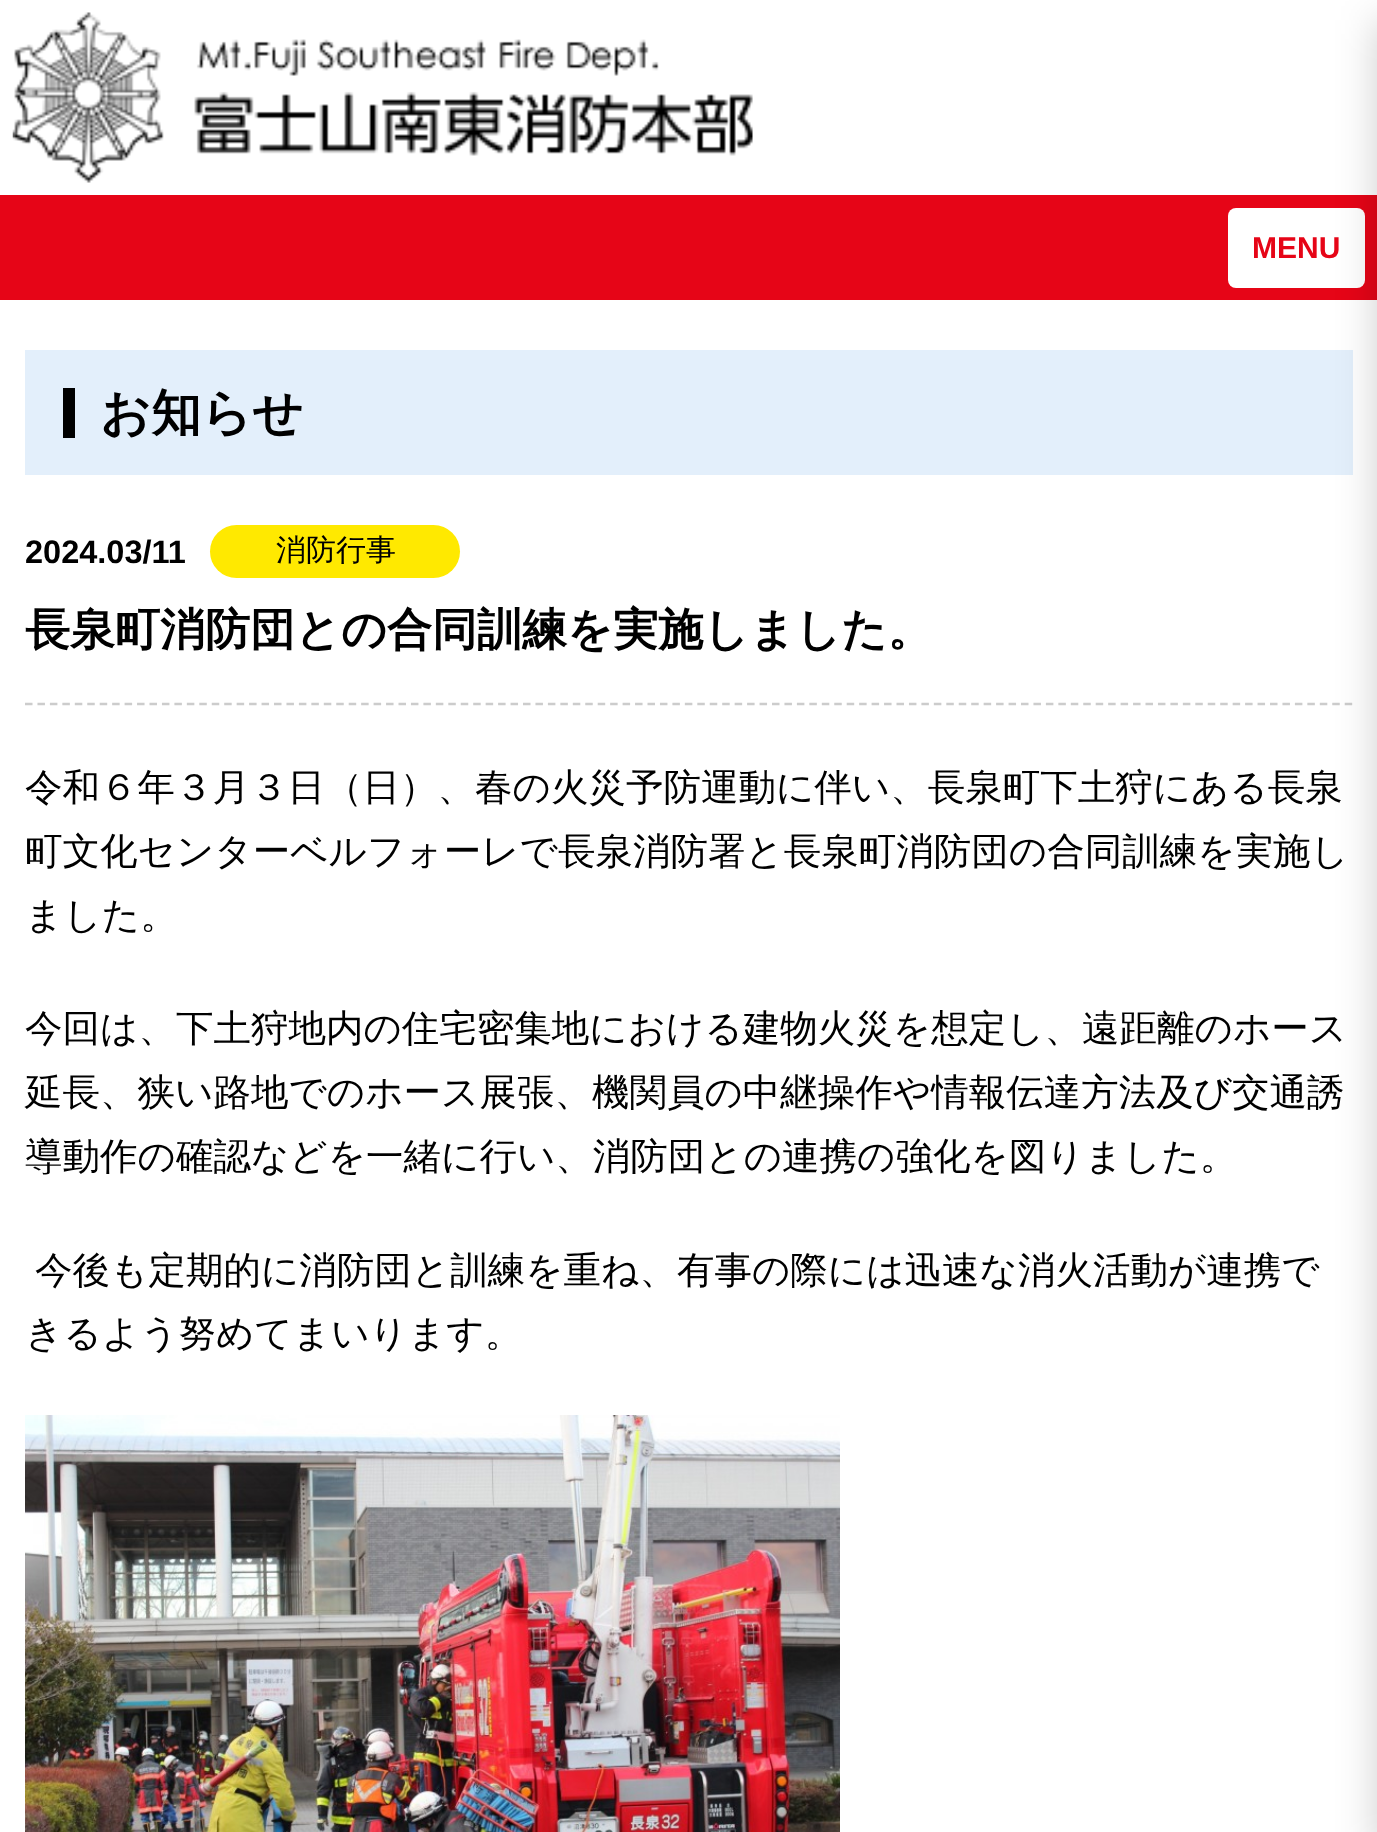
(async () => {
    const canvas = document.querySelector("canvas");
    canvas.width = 1377;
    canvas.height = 1832;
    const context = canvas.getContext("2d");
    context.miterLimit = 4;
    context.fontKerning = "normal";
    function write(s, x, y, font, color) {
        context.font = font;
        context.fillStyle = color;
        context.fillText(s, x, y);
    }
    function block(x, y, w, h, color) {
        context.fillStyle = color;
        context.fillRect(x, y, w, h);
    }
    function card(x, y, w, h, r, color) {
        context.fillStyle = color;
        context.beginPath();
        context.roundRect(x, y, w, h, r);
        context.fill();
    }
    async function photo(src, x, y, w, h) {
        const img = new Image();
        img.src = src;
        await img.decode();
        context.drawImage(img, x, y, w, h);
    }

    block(0, 0, 1377, 1832, "rgb(255, 255, 255)");
    await photo("media/1.png", 12, 12, 741, 171);
    block(0, 195, 1377, 105, "rgb(230, 5, 23)");
    card(1228, 208, 137, 80, 8, "rgb(255, 255, 255)");
    block(25, 350, 1328, 125, "rgb(227, 239, 251)");
    context.beginPath();
    context.moveTo(25, 704);
    context.lineTo(1352.5, 704);
    context.strokeStyle = "rgb(204, 204, 204)";
    context.lineWidth = 2.5;
    context.setLineDash([7.5, 4.95]);
    context.stroke();
    context.fillStyle = "rgba(0, 0, 0, 0.2)";
    context.filter = "blur(21px)";
    context.beginPath();
    context.rect(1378, 20, 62, 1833);
    context.fill();
    context.filter = "none";
    write("MENU", 1252, 258, "bold 30px Liberation Sans", "rgb(230, 5, 23)");
    block(63, 388, 12, 50, "rgb(0, 0, 0)");
    write("お知らせ", 100, 430, "bold 50px WenQuanYi Zen Hei", "rgb(0, 0, 0)");
    write("2024.03/11", 25, 563, "bold 32.5px Liberation Sans", "rgb(0, 0, 0)");
    card(210, 525, 250, 53, 26.5, "rgb(255, 233, 0)");
    write("消防行事", 276, 560, "500 30px WenQuanYi Zen Hei", "rgb(0, 0, 0)");
    write("長泉町消防団との合同訓練を実施しました。", 25, 645, "bold 45px WenQuanYi Zen Hei", "rgb(0, 0, 0)");
    write("令和６年３月３日（日）、春の火災予防運動に伴い、長泉町下土狩にある長泉", 25, 800, "500 37.5px WenQuanYi Zen Hei", "rgb(0, 0, 0)");
    write("町文化センターベルフォーレで長泉消防署と長泉町消防団の合同訓練を実施し", 25, 864, "500 37.5px WenQuanYi Zen Hei", "rgb(0, 0, 0)");
    write("ました。", 25, 928, "500 37.5px WenQuanYi Zen Hei", "rgb(0, 0, 0)");
    write("今回は、下土狩地内の住宅密集地における建物火災を想定し、遠距離のホース", 25, 1041, "500 37.5px WenQuanYi Zen Hei", "rgb(0, 0, 0)");
    write("延長、狭い路地でのホース展張、機関員の中継操作や情報伝達方法及び交通誘", 25, 1105, "500 37.5px WenQuanYi Zen Hei", "rgb(0, 0, 0)");
    write("導動作の確認などを一緒に行い、消防団との連携の強化を図りました。", 25, 1169, "500 37.5px WenQuanYi Zen Hei", "rgb(0, 0, 0)");
    write("今後も定期的に消防団と訓練を重ね、有事の際には迅速な消火活動が連携で", 35, 1283, "500 37.5px WenQuanYi Zen Hei", "rgb(0, 0, 0)");
    write("きるよう努めてまいります。", 25, 1346, "500 37.5px WenQuanYi Zen Hei", "rgb(0, 0, 0)");
    await photo("media/2.png", 25, 1415, 815, 417);
})();
